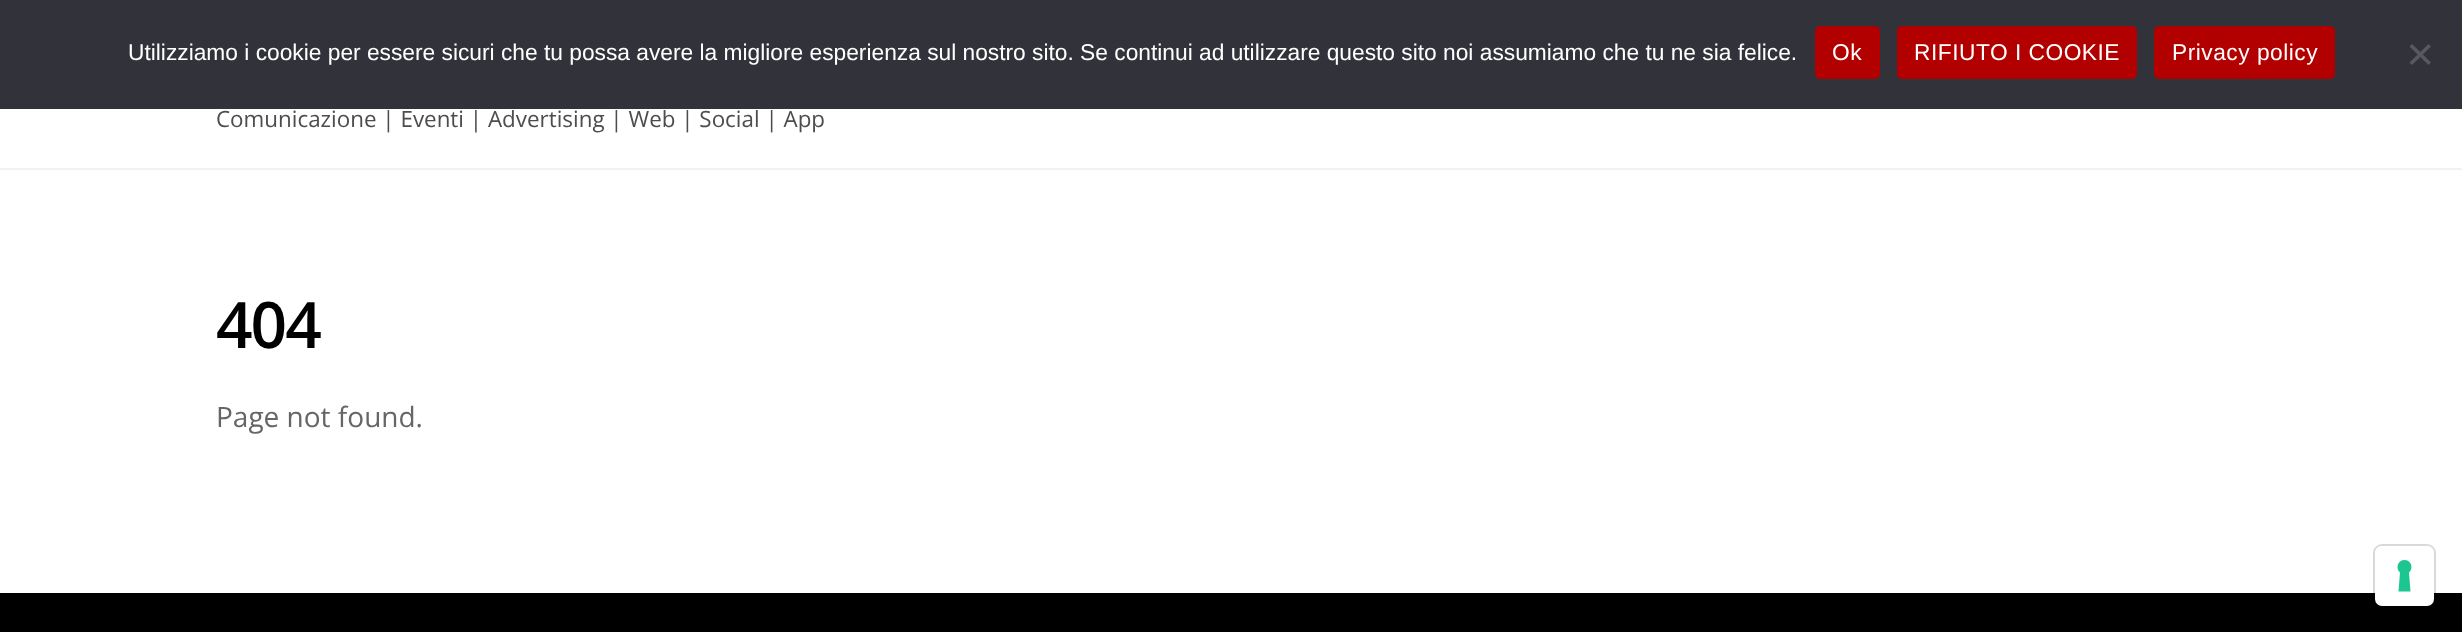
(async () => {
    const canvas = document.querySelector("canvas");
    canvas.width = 2462;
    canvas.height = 632;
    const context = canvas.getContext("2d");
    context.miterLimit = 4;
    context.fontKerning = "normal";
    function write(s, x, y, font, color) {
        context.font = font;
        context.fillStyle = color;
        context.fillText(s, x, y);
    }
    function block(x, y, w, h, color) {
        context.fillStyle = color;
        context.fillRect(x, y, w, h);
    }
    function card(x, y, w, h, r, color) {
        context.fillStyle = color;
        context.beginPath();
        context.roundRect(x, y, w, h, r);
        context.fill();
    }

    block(0, 0, 2462, 632, "rgb(255, 255, 255)");
    block(0, 0, 2462, 109, "rgb(50, 50, 58)");
    write("Utilizziamo i cookie per essere sicuri che tu possa avere la migliore esperienza sul nostro sito. Se continui ad utilizzare questo sito noi assumiamo che tu ne sia felice.", 128, 60, "22.75px Liberation Sans", "rgb(255, 255, 255)");
    card(1815, 26, 65, 53, 5, "rgb(178, 0, 0)");
    context.letterSpacing = "0.5px";
    write("Ok", 1832, 60, "22.75px Liberation Sans", "rgb(255, 255, 255)");
    card(1897, 26, 240, 53, 5, "rgb(178, 0, 0)");
    write("RIFIUTO I COOKIE", 1914, 60, "22.75px Liberation Sans", "rgb(255, 255, 255)");
    card(2154, 26, 181, 53, 5, "rgb(178, 0, 0)");
    write("Privacy policy", 2172, 60, "22.75px Liberation Sans", "rgb(255, 255, 255)");
    context.fillStyle = "rgb(89, 89, 93)";
    context.beginPath();
    context.moveTo(2428.5, 44);
    context.lineTo(2431, 46.5);
    context.lineTo(2412, 65);
    context.lineTo(2409.5, 62.5);
    context.closePath();
    context.fill();
    context.beginPath();
    context.moveTo(2409.5, 46.5);
    context.lineTo(2412, 44);
    context.lineTo(2431, 62.5);
    context.lineTo(2428.5, 65);
    context.closePath();
    context.fill();
    block(0, 168, 2462, 2, "rgb(242, 242, 242)");
    context.letterSpacing = "0px";
    write("Comunicazione | Eventi | Advertising | Web | Social | App", 216, 127, "22.4px Open Sans", "rgb(77, 77, 77)");
    context.letterSpacing = "-2px";
    write("404", 216, 348, "600 64px Open Sans", "rgb(0, 0, 0)");
    context.letterSpacing = "0px";
    write("Page not found.", 216, 427, "28px Open Sans", "rgb(102, 102, 102)");
    block(0, 593, 2462, 39, "rgb(0, 0, 0)");
    context.beginPath();
    context.roundRect(2374, 545, 61, 61, 8);
    context.strokeStyle = "rgba(0, 0, 0, 0.15)";
    context.lineWidth = 2;
    context.stroke();
    card(2375, 546, 59, 60, 7, "rgb(255, 255, 255)");
    context.fillStyle = "rgb(28, 198, 145)";
    context.beginPath();
    context.moveTo(2404.5, 560);
    context.bezierCurveTo(2411, 560, 2414, 568, 2409, 572.5);
    context.lineTo(2410.5, 591.5);
    context.lineTo(2398.5, 591.5);
    context.lineTo(2400, 572.5);
    context.bezierCurveTo(2395, 568, 2398, 560, 2404.5, 560);
    context.closePath();
    context.fill("evenodd");
})();
